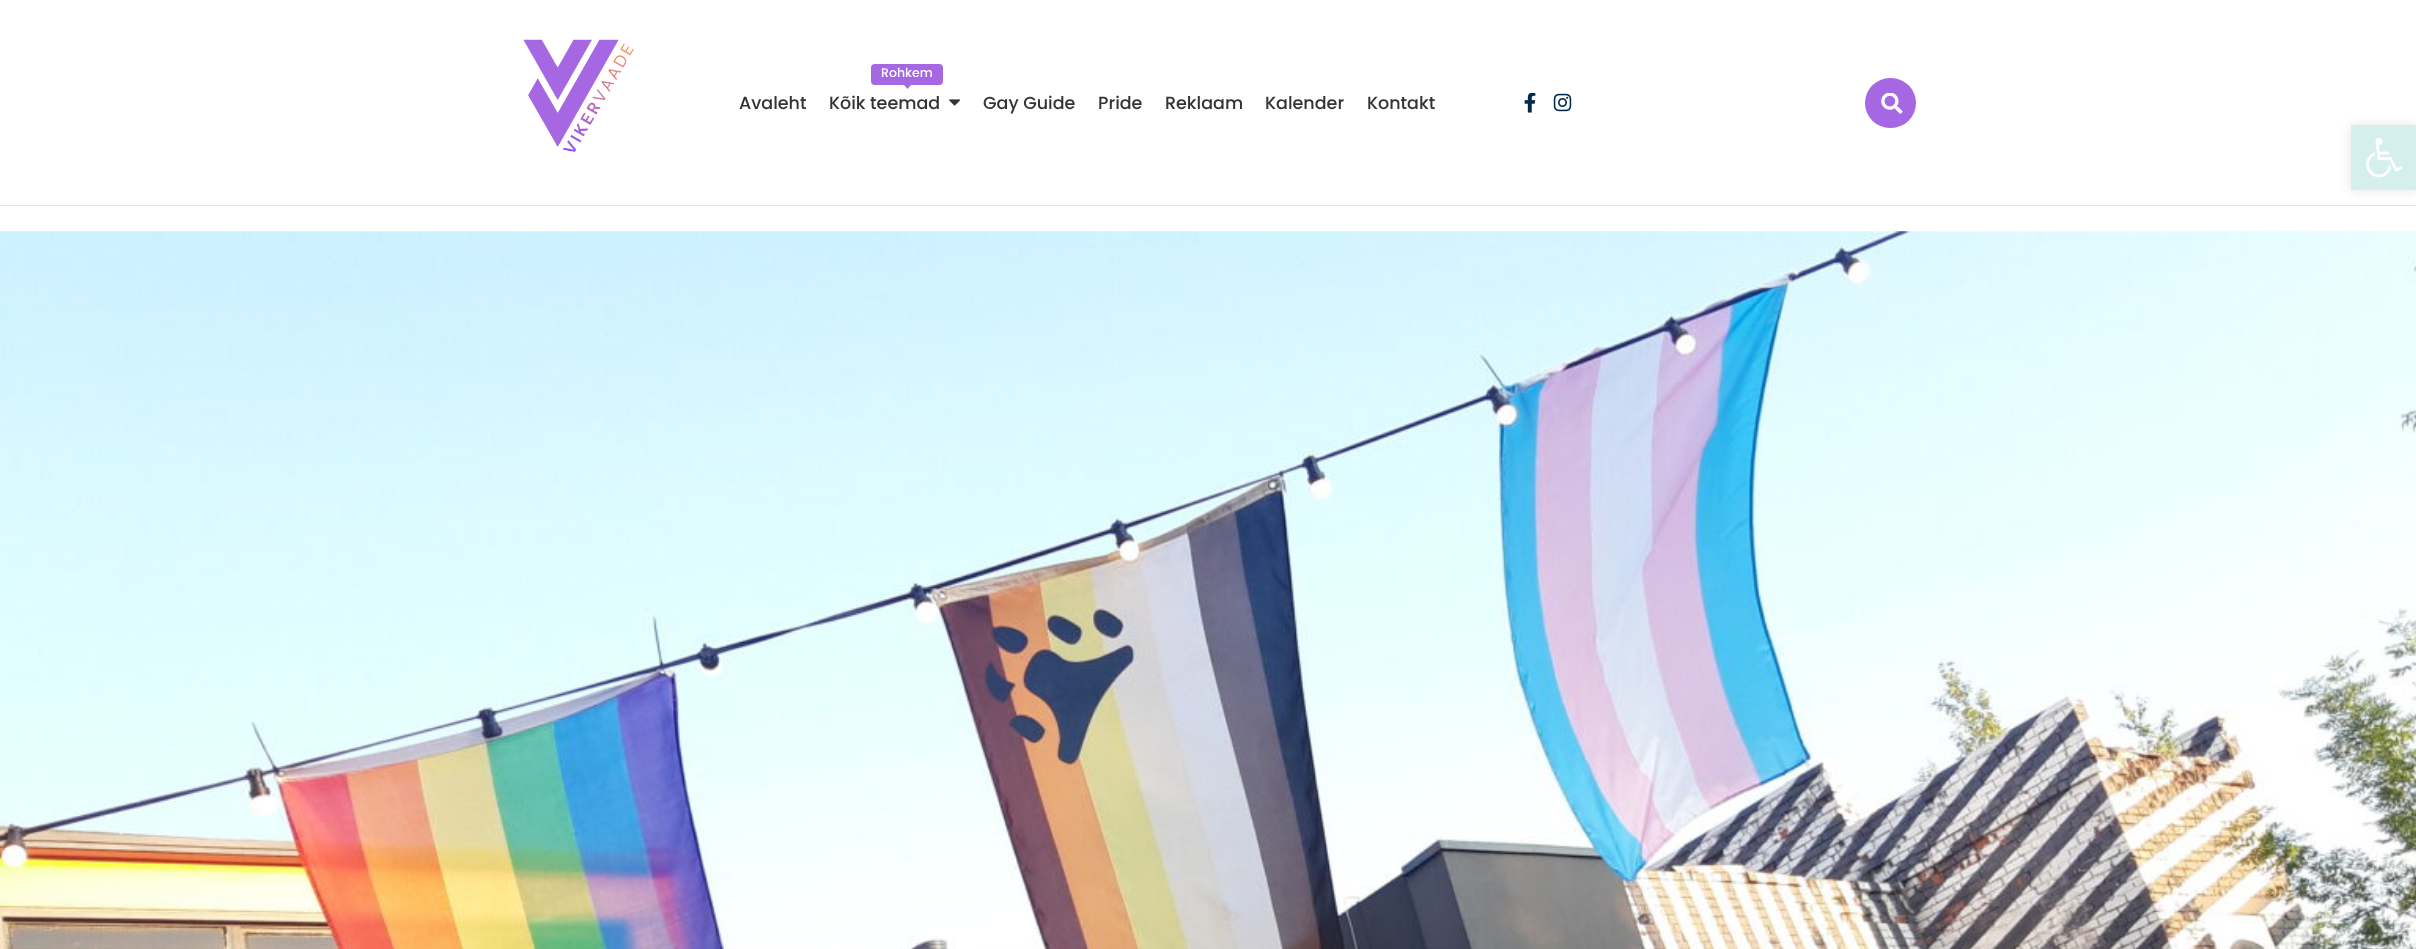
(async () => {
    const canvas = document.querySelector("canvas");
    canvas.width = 2416;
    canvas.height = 949;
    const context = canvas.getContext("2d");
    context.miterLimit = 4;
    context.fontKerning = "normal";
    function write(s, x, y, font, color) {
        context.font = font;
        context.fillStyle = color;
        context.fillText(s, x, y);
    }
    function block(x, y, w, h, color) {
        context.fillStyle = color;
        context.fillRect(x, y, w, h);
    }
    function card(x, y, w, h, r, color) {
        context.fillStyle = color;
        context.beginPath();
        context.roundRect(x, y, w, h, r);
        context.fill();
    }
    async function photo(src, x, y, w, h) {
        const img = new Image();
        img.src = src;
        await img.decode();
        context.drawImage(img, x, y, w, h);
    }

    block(0, 0, 2416, 949, "rgb(255, 255, 255)");
    block(0, 205, 2416, 1, "rgb(221, 230, 238)");
    await photo("media/1.png", 523, 39, 111, 113);
    write("Avaleht", 739, 109, "500 17.5px Poppins", "rgb(51, 51, 51)");
    card(871, 64, 72, 21, 4, "rgb(165, 104, 226)");
    write("Rohkem", 881, 77, "500 12.5px Poppins", "rgb(255, 255, 255)");
    context.fillStyle = "rgb(165, 104, 226)";
    context.beginPath();
    context.moveTo(904, 85);
    context.lineTo(911, 85);
    context.lineTo(907.5, 89);
    context.closePath();
    context.fill();
    write("Kõik teemad", 829, 109, "500 17.5px Poppins", "rgb(51, 51, 51)");
    await photo("media/2.png", 949, 99, 11, 7);
    write("Gay Guide", 983, 109, "500 17.5px Poppins", "rgb(51, 51, 51)");
    write("Pride", 1098, 109, "500 17.5px Poppins", "rgb(51, 51, 51)");
    write("Reklaam", 1165, 109, "500 17.5px Poppins", "rgb(51, 51, 51)");
    write("Kalender", 1265, 109, "500 17.5px Poppins", "rgb(51, 51, 51)");
    write("Kontakt", 1367, 109, "500 17.5px Poppins", "rgb(51, 51, 51)");
    await photo("media/3.png", 1524, 93, 12, 20);
    await photo("media/4.png", 1553, 93, 19, 19);
    card(1865, 78, 51, 50, 25, "rgb(165, 104, 226)");
    await photo("media/5.png", 1881, 93, 22, 21);
    context.fillStyle = "rgba(0, 0, 0, 0.1)";
    context.filter = "blur(6px)";
    context.beginPath();
    context.rect(2351, 125, 65, 65);
    context.fill();
    context.filter = "none";
    block(2351, 125, 65, 65, "rgb(213, 239, 239)");
    await photo("media/6.png", 2366, 138, 37, 40);
    await photo("media/7.png", 0, 231, 2416, 718);
})();
